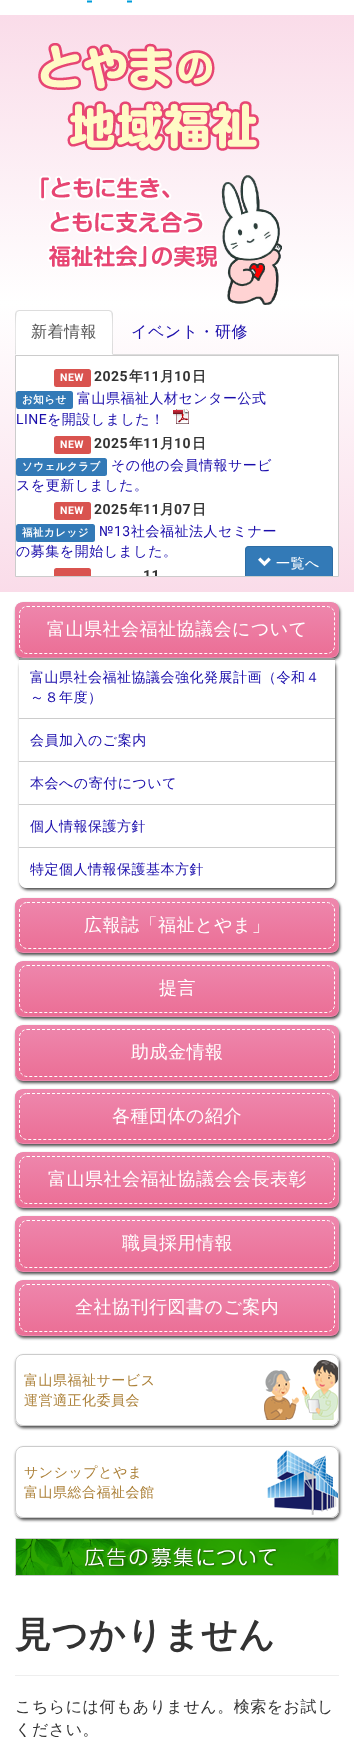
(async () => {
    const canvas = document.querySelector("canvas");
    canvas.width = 354;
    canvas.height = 1737;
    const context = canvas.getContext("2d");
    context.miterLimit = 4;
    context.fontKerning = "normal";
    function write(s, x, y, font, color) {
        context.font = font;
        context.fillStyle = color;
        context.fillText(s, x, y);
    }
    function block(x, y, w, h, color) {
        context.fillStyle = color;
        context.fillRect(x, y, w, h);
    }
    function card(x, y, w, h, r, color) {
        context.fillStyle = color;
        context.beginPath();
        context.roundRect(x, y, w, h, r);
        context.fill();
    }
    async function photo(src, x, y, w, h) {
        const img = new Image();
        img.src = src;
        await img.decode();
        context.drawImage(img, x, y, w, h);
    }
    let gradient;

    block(0, 0, 354, 1737, "rgb(255, 255, 255)");
    context.letterSpacing = "0.5px";
    write("-", 86, 7, "bold 18px Roboto", "rgb(0, 157, 218)");
    write("-", 126, 7, "bold 18px Roboto", "rgb(0, 157, 218)");
    gradient = context.createLinearGradient(177, 15, 177, 592);
    gradient.addColorStop(0, "rgb(250, 220, 233)");
    gradient.addColorStop(0.5, "rgb(255, 255, 255)");
    gradient.addColorStop(1, "rgb(250, 220, 233)");
    context.fillStyle = gradient;
    context.fillRect(0, 15, 354, 577);
    await photo("media/1.png", 38, 43, 244, 262);
    block(113, 354, 226, 1, "rgb(221, 221, 221)");
    context.fillStyle = "rgb(255, 255, 255)";
    context.beginPath();
    context.roundRect(15, 310, 98, 45, [4, 4, 0, 0]);
    context.fill();
    context.fillStyle = "rgb(221, 221, 221)";
    context.beginPath();
    context.moveTo(19, 310);
    context.lineTo(16, 311);
    context.lineTo(17, 312);
    context.lineTo(19, 311);
    context.lineTo(109, 311);
    context.lineTo(111, 312);
    context.lineTo(112, 311);
    context.lineTo(109, 310);
    context.closePath();
    context.fill();
    context.beginPath();
    context.moveTo(113, 355);
    context.lineTo(113, 314);
    context.bezierCurveTo(113, 313, 112, 312, 112, 311);
    context.lineTo(111, 312);
    context.bezierCurveTo(113, 314, 112, 349, 112, 354);
    context.closePath();
    context.fill();
    context.beginPath();
    context.moveTo(15, 355);
    context.lineTo(16, 354);
    context.bezierCurveTo(16, 349, 15, 314, 17, 312);
    context.lineTo(16, 311);
    context.lineTo(15, 314);
    context.closePath();
    context.fill();
    write("新着情報", 31, 337, "500 16px WenQuanYi Zen Hei", "rgb(85, 85, 85)");
    write("イベント・研修", 131, 337, "500 16px WenQuanYi Zen Hei", "rgb(26, 13, 171)");
    context.fillStyle = "rgb(255, 255, 255)";
    context.beginPath();
    context.rect(15.5, 355.5, 323, 221);
    context.fill();
    context.strokeStyle = "rgb(204, 204, 204)";
    context.stroke();
    card(54, 369, 37, 18, 2.5, "rgb(217, 83, 79)");
    write("NEW", 60, 381, "bold 10.5px Roboto", "rgb(255, 255, 255)");
    write("2025", 94, 381, "bold 14px Roboto", "rgb(51, 51, 51)");
    write("年", 129, 381, "bold 14px WenQuanYi Zen Hei", "rgb(51, 51, 51)");
    write("11", 143, 381, "bold 14px Roboto", "rgb(51, 51, 51)");
    write("月", 160, 381, "bold 14px WenQuanYi Zen Hei", "rgb(51, 51, 51)");
    write("10", 174, 381, "bold 14px Roboto", "rgb(51, 51, 51)");
    write("日", 192, 381, "bold 14px WenQuanYi Zen Hei", "rgb(51, 51, 51)");
    card(16, 391, 57, 18, 2.5, "rgb(51, 122, 183)");
    write("お知らせ", 22, 403, "bold 10.5px WenQuanYi Zen Hei", "rgb(255, 255, 255)");
    write("富山県福祉人材センター公式", 77, 403, "500 14px WenQuanYi Zen Hei", "rgb(26, 13, 171)");
    write("LINE", 16, 424, "14px Roboto", "rgb(26, 13, 171)");
    write("を開設しました！", 47, 424, "500 14px WenQuanYi Zen Hei", "rgb(26, 13, 171)");
    await photo("media/2.png", 173, 409, 16, 15);
    card(54, 436, 37, 18, 2.5, "rgb(217, 83, 79)");
    write("NEW", 60, 448, "bold 10.5px Roboto", "rgb(255, 255, 255)");
    write("2025", 94, 448, "bold 14px Roboto", "rgb(51, 51, 51)");
    write("年", 129, 448, "bold 14px WenQuanYi Zen Hei", "rgb(51, 51, 51)");
    write("11", 143, 448, "bold 14px Roboto", "rgb(51, 51, 51)");
    write("月", 160, 448, "bold 14px WenQuanYi Zen Hei", "rgb(51, 51, 51)");
    write("10", 174, 448, "bold 14px Roboto", "rgb(51, 51, 51)");
    write("日", 192, 448, "bold 14px WenQuanYi Zen Hei", "rgb(51, 51, 51)");
    card(16, 458, 91, 18, 2.5, "rgb(51, 122, 183)");
    write("ソウェルクラブ", 22, 470, "bold 10.5px WenQuanYi Zen Hei", "rgb(255, 255, 255)");
    write("その他の会員情報サービ", 111, 470, "500 14px WenQuanYi Zen Hei", "rgb(26, 13, 171)");
    write("スを更新しました。", 16, 490, "500 14px WenQuanYi Zen Hei", "rgb(26, 13, 171)");
    card(54, 502, 37, 18, 2.5, "rgb(217, 83, 79)");
    write("NEW", 60, 514, "bold 10.5px Roboto", "rgb(255, 255, 255)");
    write("2025", 94, 514, "bold 14px Roboto", "rgb(51, 51, 51)");
    write("年", 129, 514, "bold 14px WenQuanYi Zen Hei", "rgb(51, 51, 51)");
    write("11", 143, 514, "bold 14px Roboto", "rgb(51, 51, 51)");
    write("月", 160, 514, "bold 14px WenQuanYi Zen Hei", "rgb(51, 51, 51)");
    write("07", 174, 514, "bold 14px Roboto", "rgb(51, 51, 51)");
    write("日", 192, 514, "bold 14px WenQuanYi Zen Hei", "rgb(51, 51, 51)");
    card(16, 524, 79, 18, 2.5, "rgb(51, 122, 183)");
    write("福祉カレッジ", 22, 536, "bold 10.5px WenQuanYi Zen Hei", "rgb(255, 255, 255)");
    write("№13", 99, 536, "14px Roboto", "rgb(26, 13, 171)");
    write("社会福祉法人セミナー", 131, 536, "500 14px WenQuanYi Zen Hei", "rgb(26, 13, 171)");
    write("の募集を開始しました。", 16, 556, "500 14px WenQuanYi Zen Hei", "rgb(26, 13, 171)");
    context.fillStyle = "rgb(217, 83, 79)";
    context.beginPath();
    context.roundRect(54, 568, 37, 8, [2.5, 2.5, 0, 0]);
    context.fill();
    context.save();
    context.beginPath();
    context.rect(16, 565, 200, 11);
    context.clip();
    write("11", 143, 580, "bold 14px Roboto", "rgb(51, 51, 51)");
    context.restore();
    context.fillStyle = "rgb(51, 122, 183)";
    context.beginPath();
    context.roundRect(245, 546, 88, 30, [4, 4, 0, 0]);
    context.fill();
    context.save();
    context.beginPath();
    context.rect(16, 356, 322, 220);
    context.clip();
    context.beginPath();
    context.roundRect(245.5, 546.5, 87, 33, 3.5);
    context.strokeStyle = "rgb(46, 109, 164)";
    context.stroke();
    context.restore();
    await photo("media/3.png", 258, 557, 13, 10);
    write("一覧へ", 276, 568, "500 14px WenQuanYi Zen Hei", "rgb(255, 255, 255)");
    context.fillStyle = "rgba(0, 0, 0, 0.7)";
    context.filter = "blur(1.5px)";
    context.beginPath();
    context.roundRect(16, 604, 324, 56, 8);
    context.fill();
    context.filter = "none";
    context.save();
    context.beginPath();
    context.roundRect(15, 602, 324, 56, 8);
    context.clip();
    gradient = context.createLinearGradient(177, 603, 177, 657);
    gradient.addColorStop(0, "rgb(238, 135, 173)");
    gradient.addColorStop(1, "rgb(235, 110, 149)");
    context.fillStyle = gradient;
    context.fillRect(15, 603, 324, 54);
    context.restore();
    context.beginPath();
    context.roundRect(15.5, 602.5, 323, 55, 7.5);
    context.strokeStyle = "rgb(238, 135, 173)";
    context.stroke();
    context.beginPath();
    context.moveTo(27, 606.5);
    context.lineTo(327, 606.5);
    context.bezierCurveTo(331, 606.5, 334.5, 610, 334.5, 614);
    context.lineTo(334.5, 646);
    context.bezierCurveTo(334.5, 650, 331, 653.5, 327, 653.5);
    context.lineTo(27, 653.5);
    context.bezierCurveTo(23, 653.5, 19.5, 650, 19.5, 646);
    context.lineTo(19.5, 614);
    context.bezierCurveTo(19.5, 610, 23, 606.5, 27, 606.5);
    context.closePath();
    context.strokeStyle = "rgb(255, 255, 255)";
    context.setLineDash([3, 2]);
    context.stroke();
    write("富山県社会福祉協議会について", 47, 635, "500 18px WenQuanYi Zen Hei", "rgb(255, 255, 255)");
    context.save();
    context.beginPath();
    context.moveTo(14, 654);
    context.lineTo(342, 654);
    context.lineTo(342, 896);
    context.lineTo(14, 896);
    context.closePath();
    context.moveTo(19, 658);
    context.lineTo(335, 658);
    context.lineTo(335, 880);
    context.bezierCurveTo(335, 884.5, 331.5, 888, 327, 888);
    context.lineTo(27, 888);
    context.bezierCurveTo(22.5, 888, 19, 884.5, 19, 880);
    context.closePath();
    context.clip("evenodd");
    context.fillStyle = "rgba(0, 0, 0, 0.7)";
    context.filter = "blur(1.5px)";
    context.beginPath();
    context.roundRect(20, 660, 316, 230, 8);
    context.fill();
    context.filter = "none";
    context.restore();
    block(19, 660, 316, 3, "rgb(255, 255, 255)");
    block(19, 658, 316, 2, "rgb(153, 153, 153)");
    write("富山県社会福祉協議会強化発展計画（令和４", 30, 682, "500 14px WenQuanYi Zen Hei", "rgb(26, 13, 171)");
    write("～８年度）", 30, 702, "500 14px WenQuanYi Zen Hei", "rgb(26, 13, 171)");
    block(19, 718, 316, 1, "rgb(204, 204, 204)");
    write("会員加入のご案内", 30, 745, "500 14px WenQuanYi Zen Hei", "rgb(26, 13, 171)");
    block(19, 761, 316, 1, "rgb(204, 204, 204)");
    write("本会への寄付について", 30, 788, "500 14px WenQuanYi Zen Hei", "rgb(26, 13, 171)");
    block(19, 804, 316, 1, "rgb(204, 204, 204)");
    write("個人情報保護方針", 30, 831, "500 14px WenQuanYi Zen Hei", "rgb(26, 13, 171)");
    context.fillStyle = "rgb(255, 255, 255)";
    context.beginPath();
    context.roundRect(19, 847, 316, 41, [0, 0, 8, 8]);
    context.fill();
    block(19, 847, 316, 1, "rgb(204, 204, 204)");
    write("特定個人情報保護基本方針", 30, 874, "500 14px WenQuanYi Zen Hei", "rgb(26, 13, 171)");
    context.fillStyle = "rgba(0, 0, 0, 0.7)";
    context.filter = "blur(1.5px)";
    context.beginPath();
    context.roundRect(16, 900, 324, 55, 8);
    context.fill();
    context.filter = "none";
    context.save();
    context.beginPath();
    context.roundRect(15, 898, 324, 55, 8);
    context.clip();
    gradient = context.createLinearGradient(177, 899, 177, 952);
    gradient.addColorStop(0, "rgb(238, 135, 173)");
    gradient.addColorStop(1, "rgb(235, 110, 149)");
    context.fillStyle = gradient;
    context.fillRect(15, 899, 324, 53);
    context.restore();
    context.beginPath();
    context.roundRect(15.5, 898.5, 323, 54, 7.5);
    context.strokeStyle = "rgb(238, 135, 173)";
    context.setLineDash([]);
    context.stroke();
    context.beginPath();
    context.moveTo(27, 902.5);
    context.lineTo(327, 902.5);
    context.bezierCurveTo(331, 902.5, 334.5, 906, 334.5, 910);
    context.lineTo(334.5, 941);
    context.bezierCurveTo(334.5, 945, 331, 948.5, 327, 948.5);
    context.lineTo(27, 948.5);
    context.bezierCurveTo(23, 948.5, 19.5, 945, 19.5, 941);
    context.lineTo(19.5, 910);
    context.bezierCurveTo(19.5, 906, 23, 902.5, 27, 902.5);
    context.closePath();
    context.strokeStyle = "rgb(255, 255, 255)";
    context.setLineDash([3, 2]);
    context.stroke();
    write("広報誌「福祉とやま」", 84, 931, "500 18px WenQuanYi Zen Hei", "rgb(255, 255, 255)");
    context.fillStyle = "rgba(0, 0, 0, 0.7)";
    context.filter = "blur(1.5px)";
    context.beginPath();
    context.roundRect(16, 963, 324, 56, 8);
    context.fill();
    context.filter = "none";
    context.save();
    context.beginPath();
    context.roundRect(15, 961, 324, 56, 8);
    context.clip();
    gradient = context.createLinearGradient(177, 962, 177, 1016);
    gradient.addColorStop(0, "rgb(238, 135, 173)");
    gradient.addColorStop(1, "rgb(235, 110, 149)");
    context.fillStyle = gradient;
    context.fillRect(15, 962, 324, 54);
    context.restore();
    context.beginPath();
    context.roundRect(15.5, 961.5, 323, 55, 7.5);
    context.strokeStyle = "rgb(238, 135, 173)";
    context.setLineDash([]);
    context.stroke();
    context.beginPath();
    context.moveTo(27, 965.5);
    context.lineTo(327, 965.5);
    context.bezierCurveTo(331, 965.5, 334.5, 969, 334.5, 973);
    context.lineTo(334.5, 1005);
    context.bezierCurveTo(334.5, 1009, 331, 1012.5, 327, 1012.5);
    context.lineTo(27, 1012.5);
    context.bezierCurveTo(23, 1012.5, 19.5, 1009, 19.5, 1005);
    context.lineTo(19.5, 973);
    context.bezierCurveTo(19.5, 969, 23, 965.5, 27, 965.5);
    context.closePath();
    context.strokeStyle = "rgb(255, 255, 255)";
    context.setLineDash([3, 2]);
    context.stroke();
    write("提言", 159, 994, "500 18px WenQuanYi Zen Hei", "rgb(255, 255, 255)");
    context.fillStyle = "rgba(0, 0, 0, 0.7)";
    context.filter = "blur(1.5px)";
    context.beginPath();
    context.roundRect(16, 1027, 324, 56, 8);
    context.fill();
    context.filter = "none";
    context.save();
    context.beginPath();
    context.roundRect(15, 1025, 324, 56, 8);
    context.clip();
    gradient = context.createLinearGradient(177, 1026, 177, 1080);
    gradient.addColorStop(0, "rgb(238, 135, 173)");
    gradient.addColorStop(1, "rgb(235, 110, 149)");
    context.fillStyle = gradient;
    context.fillRect(15, 1026, 324, 54);
    context.restore();
    context.beginPath();
    context.roundRect(15.5, 1025.5, 323, 55, 7.5);
    context.strokeStyle = "rgb(238, 135, 173)";
    context.setLineDash([]);
    context.stroke();
    context.beginPath();
    context.moveTo(27, 1029.5);
    context.lineTo(327, 1029.5);
    context.bezierCurveTo(331, 1029.5, 334.5, 1033, 334.5, 1037);
    context.lineTo(334.5, 1069);
    context.bezierCurveTo(334.5, 1073, 331, 1076.5, 327, 1076.5);
    context.lineTo(27, 1076.5);
    context.bezierCurveTo(23, 1076.5, 19.5, 1073, 19.5, 1069);
    context.lineTo(19.5, 1037);
    context.bezierCurveTo(19.5, 1033, 23, 1029.5, 27, 1029.5);
    context.closePath();
    context.strokeStyle = "rgb(255, 255, 255)";
    context.setLineDash([3, 2]);
    context.stroke();
    write("助成金情報", 131, 1058, "500 18px WenQuanYi Zen Hei", "rgb(255, 255, 255)");
    context.fillStyle = "rgba(0, 0, 0, 0.7)";
    context.filter = "blur(1.5px)";
    context.beginPath();
    context.roundRect(16, 1091, 324, 55, 8);
    context.fill();
    context.filter = "none";
    context.save();
    context.beginPath();
    context.roundRect(15, 1089, 324, 55, 8);
    context.clip();
    gradient = context.createLinearGradient(177, 1090, 177, 1143);
    gradient.addColorStop(0, "rgb(238, 135, 173)");
    gradient.addColorStop(1, "rgb(235, 110, 149)");
    context.fillStyle = gradient;
    context.fillRect(15, 1090, 324, 53);
    context.restore();
    context.beginPath();
    context.roundRect(15.5, 1089.5, 323, 54, 7.5);
    context.strokeStyle = "rgb(238, 135, 173)";
    context.setLineDash([]);
    context.stroke();
    context.beginPath();
    context.moveTo(27, 1093.5);
    context.lineTo(327, 1093.5);
    context.bezierCurveTo(331, 1093.5, 334.5, 1097, 334.5, 1101);
    context.lineTo(334.5, 1132);
    context.bezierCurveTo(334.5, 1136, 331, 1139.5, 327, 1139.5);
    context.lineTo(27, 1139.5);
    context.bezierCurveTo(23, 1139.5, 19.5, 1136, 19.5, 1132);
    context.lineTo(19.5, 1101);
    context.bezierCurveTo(19.5, 1097, 23, 1093.5, 27, 1093.5);
    context.closePath();
    context.strokeStyle = "rgb(255, 255, 255)";
    context.setLineDash([3, 2]);
    context.stroke();
    write("各種団体の紹介", 112, 1122, "500 18px WenQuanYi Zen Hei", "rgb(255, 255, 255)");
    context.fillStyle = "rgba(0, 0, 0, 0.7)";
    context.filter = "blur(1.5px)";
    context.beginPath();
    context.roundRect(16, 1154, 324, 56, 8);
    context.fill();
    context.filter = "none";
    context.save();
    context.beginPath();
    context.roundRect(15, 1152, 324, 56, 8);
    context.clip();
    gradient = context.createLinearGradient(177, 1153, 177, 1207);
    gradient.addColorStop(0, "rgb(238, 135, 173)");
    gradient.addColorStop(1, "rgb(235, 110, 149)");
    context.fillStyle = gradient;
    context.fillRect(15, 1153, 324, 54);
    context.restore();
    context.beginPath();
    context.roundRect(15.5, 1152.5, 323, 55, 7.5);
    context.strokeStyle = "rgb(238, 135, 173)";
    context.setLineDash([]);
    context.stroke();
    context.beginPath();
    context.moveTo(27, 1156.5);
    context.lineTo(327, 1156.5);
    context.bezierCurveTo(331, 1156.5, 334.5, 1160, 334.5, 1164);
    context.lineTo(334.5, 1196);
    context.bezierCurveTo(334.5, 1200, 331, 1203.5, 327, 1203.5);
    context.lineTo(27, 1203.5);
    context.bezierCurveTo(23, 1203.5, 19.5, 1200, 19.5, 1196);
    context.lineTo(19.5, 1164);
    context.bezierCurveTo(19.5, 1160, 23, 1156.5, 27, 1156.5);
    context.closePath();
    context.strokeStyle = "rgb(255, 255, 255)";
    context.setLineDash([3, 2]);
    context.stroke();
    write("富山県社会福祉協議会会長表彰", 48, 1185, "500 18px WenQuanYi Zen Hei", "rgb(255, 255, 255)");
    context.fillStyle = "rgba(0, 0, 0, 0.7)";
    context.filter = "blur(1.5px)";
    context.beginPath();
    context.roundRect(16, 1218, 324, 56, 8);
    context.fill();
    context.filter = "none";
    context.save();
    context.beginPath();
    context.roundRect(15, 1216, 324, 56, 8);
    context.clip();
    gradient = context.createLinearGradient(177, 1217, 177, 1271);
    gradient.addColorStop(0, "rgb(238, 135, 173)");
    gradient.addColorStop(1, "rgb(235, 110, 149)");
    context.fillStyle = gradient;
    context.fillRect(15, 1217, 324, 54);
    context.restore();
    context.beginPath();
    context.roundRect(15.5, 1216.5, 323, 55, 7.5);
    context.strokeStyle = "rgb(238, 135, 173)";
    context.setLineDash([]);
    context.stroke();
    context.beginPath();
    context.moveTo(27, 1220.5);
    context.lineTo(327, 1220.5);
    context.bezierCurveTo(331, 1220.5, 334.5, 1224, 334.5, 1228);
    context.lineTo(334.5, 1260);
    context.bezierCurveTo(334.5, 1264, 331, 1267.5, 327, 1267.5);
    context.lineTo(27, 1267.5);
    context.bezierCurveTo(23, 1267.5, 19.5, 1264, 19.5, 1260);
    context.lineTo(19.5, 1228);
    context.bezierCurveTo(19.5, 1224, 23, 1220.5, 27, 1220.5);
    context.closePath();
    context.strokeStyle = "rgb(255, 255, 255)";
    context.setLineDash([3, 2]);
    context.stroke();
    write("職員採用情報", 122, 1249, "500 18px WenQuanYi Zen Hei", "rgb(255, 255, 255)");
    context.fillStyle = "rgba(0, 0, 0, 0.7)";
    context.filter = "blur(1.5px)";
    context.beginPath();
    context.roundRect(16, 1282, 324, 56, 8);
    context.fill();
    context.filter = "none";
    context.save();
    context.beginPath();
    context.roundRect(15, 1280, 324, 56, 8);
    context.clip();
    gradient = context.createLinearGradient(177, 1281, 177, 1335);
    gradient.addColorStop(0, "rgb(238, 135, 173)");
    gradient.addColorStop(1, "rgb(235, 110, 149)");
    context.fillStyle = gradient;
    context.fillRect(15, 1281, 324, 54);
    context.restore();
    context.beginPath();
    context.roundRect(15.5, 1280.5, 323, 55, 7.5);
    context.strokeStyle = "rgb(238, 135, 173)";
    context.setLineDash([]);
    context.stroke();
    context.beginPath();
    context.moveTo(27, 1284.5);
    context.lineTo(327, 1284.5);
    context.bezierCurveTo(331, 1284.5, 334.5, 1288, 334.5, 1292);
    context.lineTo(334.5, 1324);
    context.bezierCurveTo(334.5, 1328, 331, 1331.5, 327, 1331.5);
    context.lineTo(27, 1331.5);
    context.bezierCurveTo(23, 1331.5, 19.5, 1328, 19.5, 1324);
    context.lineTo(19.5, 1292);
    context.bezierCurveTo(19.5, 1288, 23, 1284.5, 27, 1284.5);
    context.closePath();
    context.strokeStyle = "rgb(255, 255, 255)";
    context.setLineDash([3, 2]);
    context.stroke();
    write("全社協刊行図書のご案内", 75, 1313, "500 18px WenQuanYi Zen Hei", "rgb(255, 255, 255)");
    await photo("media/4.png", 264, 1360, 74, 60);
    context.save();
    context.beginPath();
    context.moveTo(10, 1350);
    context.lineTo(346, 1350);
    context.lineTo(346, 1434);
    context.lineTo(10, 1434);
    context.closePath();
    context.moveTo(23, 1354);
    context.lineTo(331, 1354);
    context.bezierCurveTo(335.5, 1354, 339, 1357.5, 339, 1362);
    context.lineTo(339, 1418);
    context.bezierCurveTo(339, 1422.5, 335.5, 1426, 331, 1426);
    context.lineTo(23, 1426);
    context.bezierCurveTo(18.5, 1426, 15, 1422.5, 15, 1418);
    context.lineTo(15, 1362);
    context.bezierCurveTo(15, 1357.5, 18.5, 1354, 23, 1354);
    context.closePath();
    context.clip("evenodd");
    context.fillStyle = "rgba(0, 0, 0, 0.7)";
    context.filter = "blur(1.5px)";
    context.beginPath();
    context.roundRect(16, 1356, 324, 72, 8);
    context.fill();
    context.filter = "none";
    context.restore();
    context.beginPath();
    context.roundRect(15.5, 1354.5, 323, 71, 7.5);
    context.strokeStyle = "rgb(204, 204, 204)";
    context.setLineDash([]);
    context.stroke();
    write("富山県福祉サービス", 24, 1385, "500 14px WenQuanYi Zen Hei", "rgb(172, 129, 57)");
    write("運営適正化委員会", 24, 1405, "500 14px WenQuanYi Zen Hei", "rgb(172, 129, 57)");
    await photo("media/5.png", 267, 1450, 71, 65);
    context.save();
    context.beginPath();
    context.moveTo(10, 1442);
    context.lineTo(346, 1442);
    context.lineTo(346, 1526);
    context.lineTo(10, 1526);
    context.closePath();
    context.moveTo(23, 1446);
    context.lineTo(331, 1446);
    context.bezierCurveTo(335.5, 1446, 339, 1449.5, 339, 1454);
    context.lineTo(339, 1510);
    context.bezierCurveTo(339, 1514.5, 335.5, 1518, 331, 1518);
    context.lineTo(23, 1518);
    context.bezierCurveTo(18.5, 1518, 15, 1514.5, 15, 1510);
    context.lineTo(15, 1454);
    context.bezierCurveTo(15, 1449.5, 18.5, 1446, 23, 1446);
    context.closePath();
    context.clip("evenodd");
    context.fillStyle = "rgba(0, 0, 0, 0.7)";
    context.filter = "blur(1.5px)";
    context.beginPath();
    context.roundRect(16, 1448, 324, 72, 8);
    context.fill();
    context.filter = "none";
    context.restore();
    context.beginPath();
    context.roundRect(15.5, 1446.5, 323, 71, 7.5);
    context.stroke();
    write("サンシップとやま", 24, 1477, "500 14px WenQuanYi Zen Hei", "rgb(172, 129, 57)");
    write("富山県総合福祉会館", 24, 1497, "500 14px WenQuanYi Zen Hei", "rgb(172, 129, 57)");
    context.strokeRect(15.5, 1538.5, 323, 37);
    await photo("media/6.png", 16, 1539, 322, 36);
    block(15, 1675, 324, 1, "rgb(238, 238, 238)");
    write("見つかりません", 15, 1647, "bold 36px WenQuanYi Zen Hei", "rgb(51, 51, 51)");
    write("こちらには何もありません。検索をお試し", 15, 1712, "500 16px WenQuanYi Zen Hei", "rgb(51, 51, 51)");
    write("ください。", 15, 1735, "500 16px WenQuanYi Zen Hei", "rgb(51, 51, 51)");
})();
